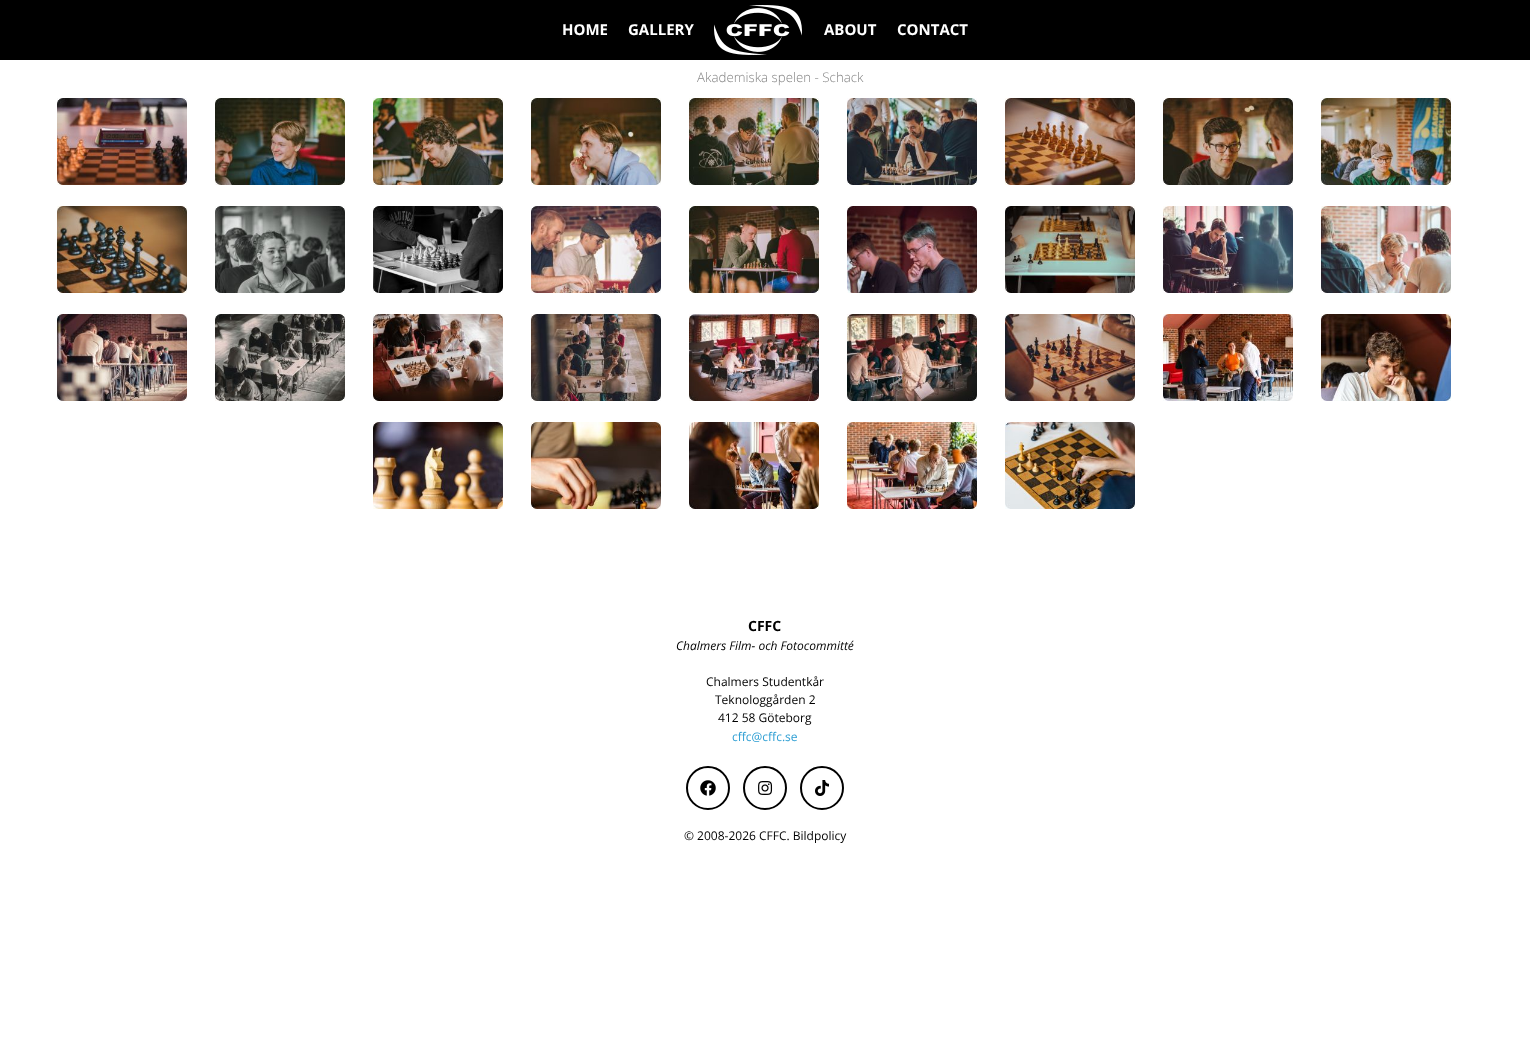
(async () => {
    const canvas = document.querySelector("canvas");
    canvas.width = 1530;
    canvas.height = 1046;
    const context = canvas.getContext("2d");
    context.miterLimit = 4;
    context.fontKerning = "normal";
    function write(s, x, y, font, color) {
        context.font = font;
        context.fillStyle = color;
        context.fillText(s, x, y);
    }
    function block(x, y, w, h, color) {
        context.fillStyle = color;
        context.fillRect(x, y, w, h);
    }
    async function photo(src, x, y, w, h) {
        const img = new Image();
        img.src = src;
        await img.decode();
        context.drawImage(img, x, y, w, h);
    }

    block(0, 0, 1530, 1046, "rgb(255, 255, 255)");
    block(0, 0, 1530, 60, "rgb(0, 0, 0)");
    write("HOME", 562, 35, "bold 15px Open Sans", "rgb(255, 255, 255)");
    write("GALLERY", 628, 35, "bold 15px Open Sans", "rgb(255, 255, 255)");
    await photo("media/1.png", 714, 5, 88, 50);
    write("ABOUT", 824, 35, "bold 15px Open Sans", "rgb(255, 255, 255)");
    write("CONTACT", 897, 35, "bold 15px Open Sans", "rgb(255, 255, 255)");
    write("Akademiska spelen - Schack", 697, 82, "300 13.3px Open Sans", "rgb(133, 133, 133)");
    await photo("media/2.png", 57, 98, 130, 87);
    await photo("media/3.png", 215, 98, 130, 87);
    await photo("media/4.png", 373, 98, 130, 87);
    await photo("media/5.png", 531, 98, 130, 87);
    await photo("media/6.png", 689, 98, 130, 87);
    await photo("media/7.png", 847, 98, 130, 87);
    await photo("media/8.png", 1005, 98, 130, 87);
    await photo("media/9.png", 1163, 98, 130, 87);
    await photo("media/10.png", 1321, 98, 130, 87);
    await photo("media/11.png", 57, 206, 130, 87);
    await photo("media/12.png", 215, 206, 130, 87);
    await photo("media/13.png", 373, 206, 130, 87);
    await photo("media/14.png", 531, 206, 130, 87);
    await photo("media/15.png", 689, 206, 130, 87);
    await photo("media/16.png", 847, 206, 130, 87);
    await photo("media/17.png", 1005, 206, 130, 87);
    await photo("media/18.png", 1163, 206, 130, 87);
    await photo("media/19.png", 1321, 206, 130, 87);
    await photo("media/20.png", 57, 314, 130, 87);
    await photo("media/21.png", 215, 314, 130, 87);
    await photo("media/22.png", 373, 314, 130, 87);
    await photo("media/23.png", 531, 314, 130, 87);
    await photo("media/24.png", 689, 314, 130, 87);
    await photo("media/25.png", 847, 314, 130, 87);
    await photo("media/26.png", 1005, 314, 130, 87);
    await photo("media/27.png", 1163, 314, 130, 87);
    await photo("media/28.png", 1321, 314, 130, 87);
    await photo("media/29.png", 373, 422, 130, 87);
    await photo("media/30.png", 531, 422, 130, 87);
    await photo("media/31.png", 689, 422, 130, 87);
    await photo("media/32.png", 847, 422, 130, 87);
    await photo("media/33.png", 1005, 422, 130, 87);
    write("CFFC", 748, 631, "bold 14px Open Sans", "rgb(0, 0, 0)");
    write("Chalmers Film- och Fotocommitté", 676, 650, "italic 12px Open Sans", "rgb(0, 0, 0)");
    write("Chalmers Studentkår", 706, 686, "12px Open Sans", "rgb(0, 0, 0)");
    write("Teknologgården 2", 715, 704, "12px Open Sans", "rgb(0, 0, 0)");
    write("412 58 Göteborg", 718, 722, "12px Open Sans", "rgb(0, 0, 0)");
    write("cffc@cffc.se", 732, 741, "12px Open Sans", "rgb(45, 158, 211)");
    context.beginPath();
    context.arc(708, 788, 21, 0, Math.PI * 2);
    context.strokeStyle = "rgb(0, 0, 0)";
    context.lineWidth = 2;
    context.stroke();
    await photo("media/34.png", 700, 780, 16, 16);
    context.beginPath();
    context.arc(765, 788, 21, 0, Math.PI * 2);
    context.stroke();
    await photo("media/35.png", 758, 781, 15, 14);
    context.beginPath();
    context.arc(822, 788, 21, 0, Math.PI * 2);
    context.stroke();
    await photo("media/36.png", 815, 780, 14, 16);
    write("© 2008-2026 CFFC. Bildpolicy", 684, 840, "12px Open Sans", "rgb(0, 0, 0)");
})();
